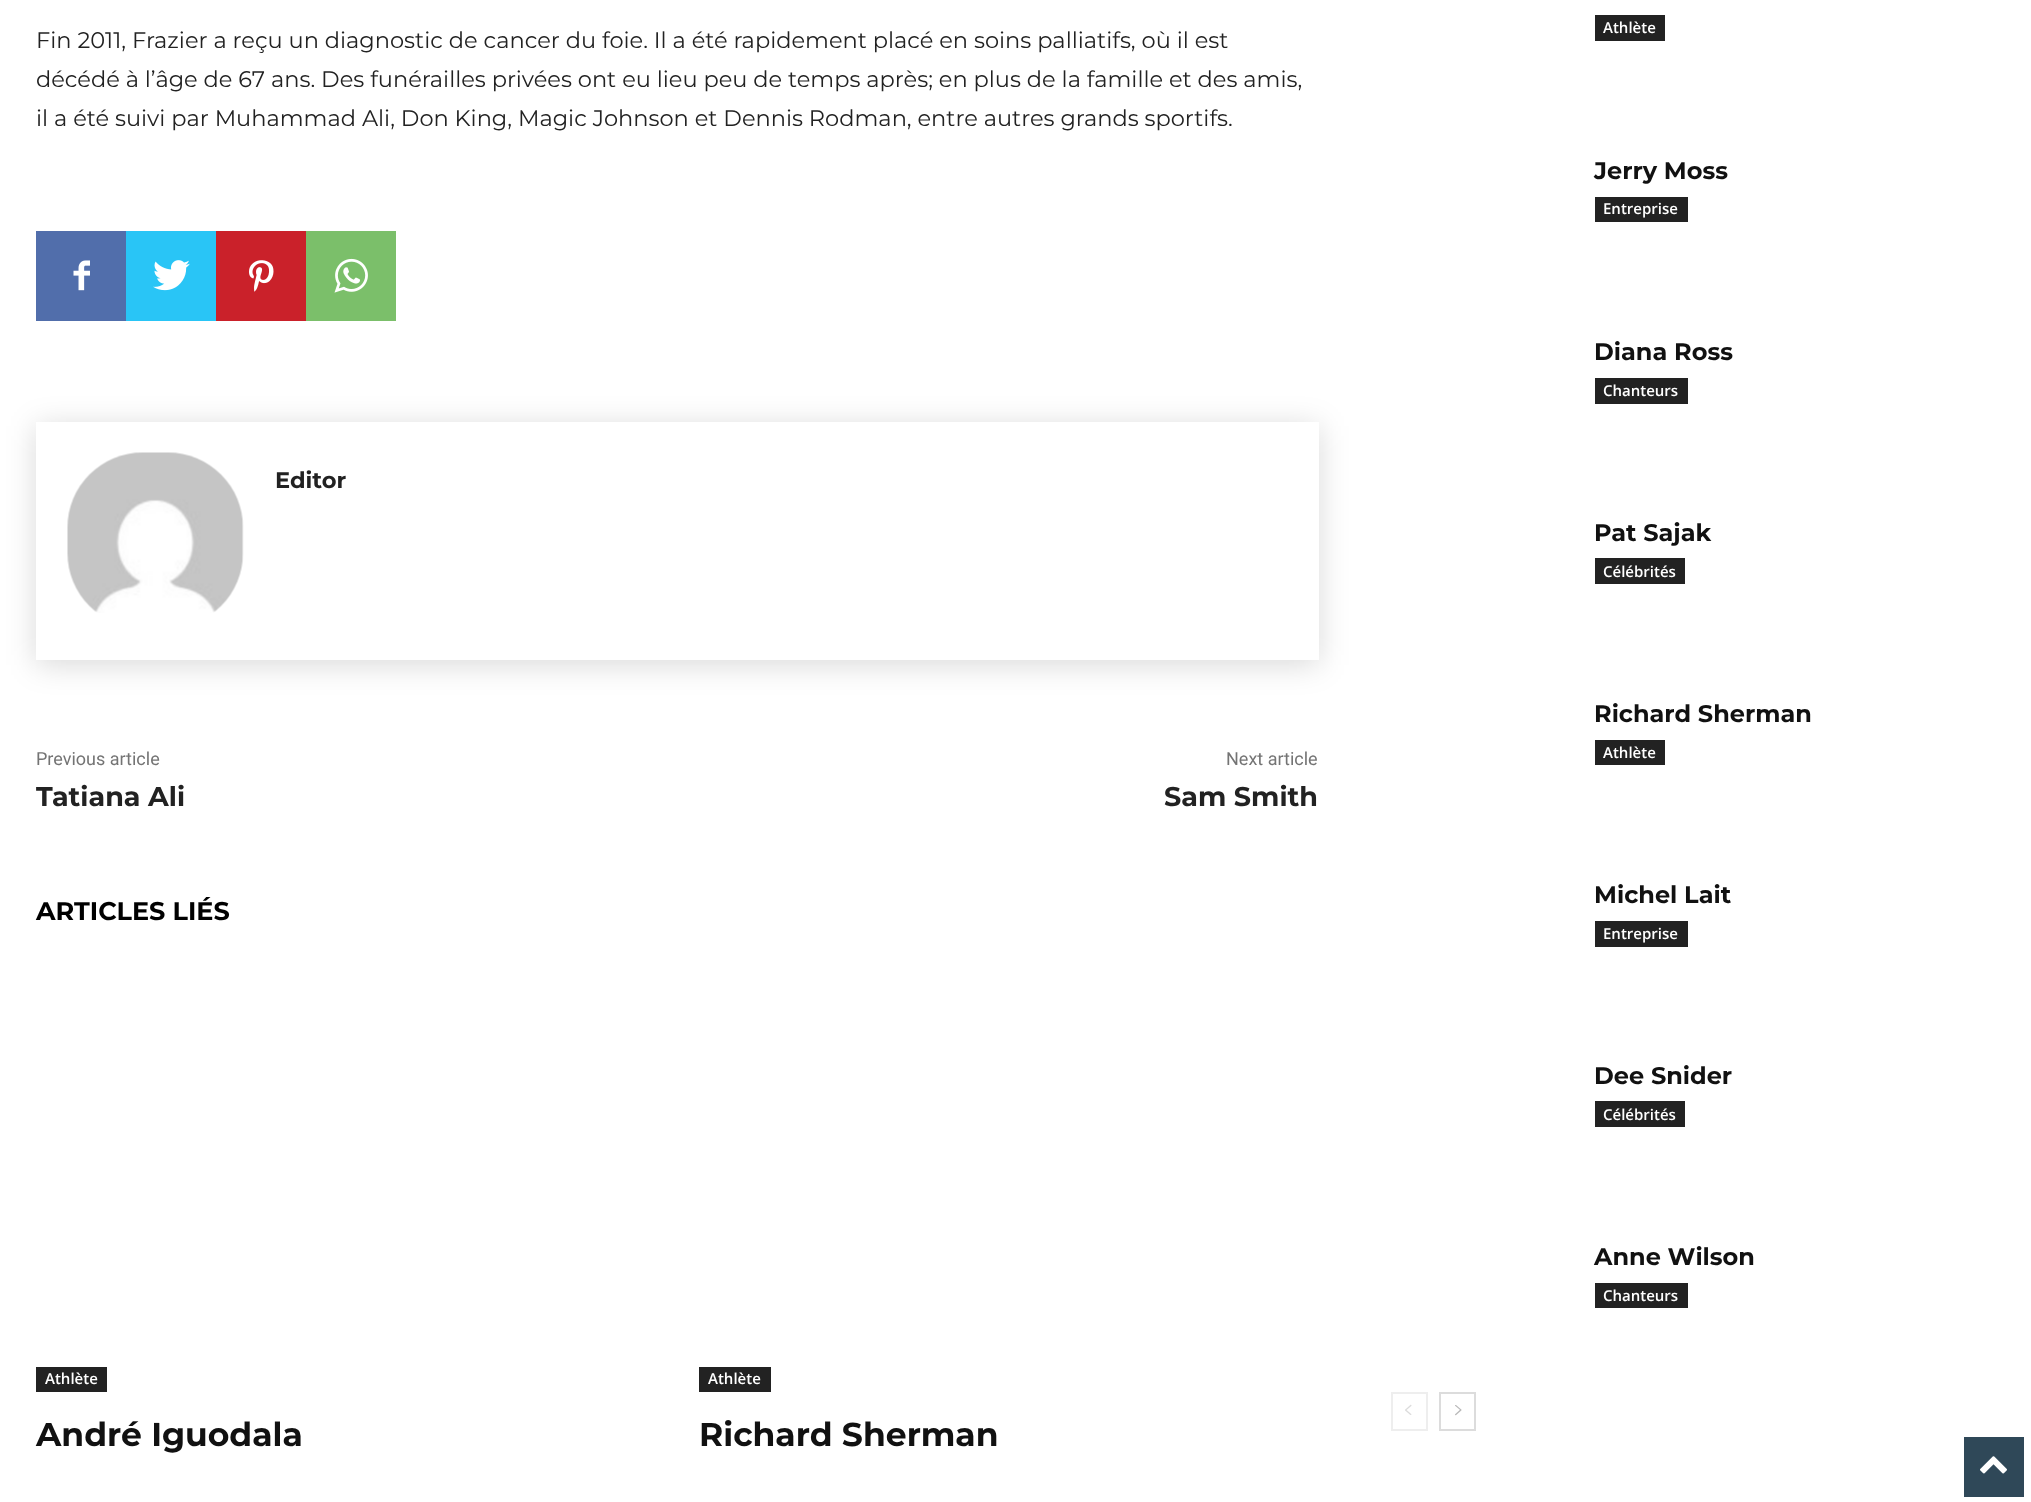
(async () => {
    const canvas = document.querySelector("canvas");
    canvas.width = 2031;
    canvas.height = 1502;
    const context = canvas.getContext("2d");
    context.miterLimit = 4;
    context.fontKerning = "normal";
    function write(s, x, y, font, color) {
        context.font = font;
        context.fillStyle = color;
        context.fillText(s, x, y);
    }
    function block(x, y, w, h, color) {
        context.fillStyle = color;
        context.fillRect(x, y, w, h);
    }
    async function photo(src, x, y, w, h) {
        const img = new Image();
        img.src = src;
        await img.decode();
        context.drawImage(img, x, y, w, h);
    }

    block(0, 0, 2031, 1502, "rgb(255, 255, 255)");
    write("Fin 2011, Frazier a reçu un diagnostic de cancer du foie. Il a été rapidement placé en soins palliatifs, où il est", 36, 48, "22.5px Montserrat", "rgb(34, 34, 34)");
    write("décédé à l’âge de 67 ans. Des funérailles privées ont eu lieu peu de temps après; en plus de la famille et des amis,", 36, 87, "22.5px Montserrat", "rgb(34, 34, 34)");
    write("il a été suivi par Muhammad Ali, Don King, Magic Johnson et Dennis Rodman, entre autres grands sportifs.", 36, 126, "22.5px Montserrat", "rgb(34, 34, 34)");
    block(36, 231, 90, 90, "rgb(81, 110, 171)");
    await photo("media/1.png", 73, 260, 17, 31);
    block(126, 231, 90, 90, "rgb(41, 197, 246)");
    await photo("media/2.png", 153, 260, 37, 31);
    block(216, 231, 90, 90, "rgb(202, 33, 42)");
    await photo("media/3.png", 249, 260, 25, 32);
    block(306, 231, 90, 90, "rgb(123, 191, 106)");
    await photo("media/4.png", 334, 258, 34, 35);
    context.save();
    context.beginPath();
    context.moveTo(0, 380);
    context.lineTo(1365, 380);
    context.lineTo(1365, 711);
    context.lineTo(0, 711);
    context.closePath();
    context.moveTo(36, 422);
    context.lineTo(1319, 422);
    context.lineTo(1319, 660);
    context.lineTo(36, 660);
    context.closePath();
    context.clip("evenodd");
    context.fillStyle = "rgba(0, 0, 0, 0.15)";
    context.filter = "blur(15px)";
    context.beginPath();
    context.rect(36, 426, 1283, 239);
    context.fill();
    context.filter = "none";
    context.restore();
    await photo("media/5.png", 67, 452, 177, 161);
    write("Editor", 275, 488, "bold 22.5px Montserrat", "rgb(34, 34, 34)");
    write("Previous article", 36, 765, "18px Roboto", "rgb(116, 116, 116)");
    write("Tatiana Ali", 36, 806, "bold 27px Montserrat", "rgb(34, 34, 34)");
    write("Next article", 1226, 765, "18px Roboto", "rgb(116, 116, 116)");
    write("Sam Smith", 1164, 806, "bold 27px Montserrat", "rgb(34, 34, 34)");
    write("ARTICLES LIÉS", 36, 920, "bold 25.5px Montserrat", "rgb(0, 0, 0)");
    block(36, 1367, 71, 25, "rgb(34, 34, 34)");
    write("Athlète", 45, 1384, "600 15px Open Sans", "rgb(255, 255, 255)");
    write("André Iguodala", 36, 1446, "bold 33px Montserrat", "rgb(17, 17, 17)");
    block(699, 1367, 72, 25, "rgb(34, 34, 34)");
    write("Athlète", 708, 1384, "600 15px Open Sans", "rgb(255, 255, 255)");
    write("Richard Sherman", 699, 1446, "bold 33px Montserrat", "rgb(17, 17, 17)");
    block(1595, 15, 70, 26, "rgb(34, 34, 34)");
    write("Athlète", 1603, 33, "600 15px Open Sans", "rgb(255, 255, 255)");
    write("Jerry Moss", 1594, 179, "bold 24px Montserrat", "rgb(17, 17, 17)");
    block(1595, 197, 93, 25, "rgb(34, 34, 34)");
    write("Entreprise", 1603, 214, "600 15px Open Sans", "rgb(255, 255, 255)");
    write("Diana Ross", 1594, 360, "bold 24px Montserrat", "rgb(17, 17, 17)");
    block(1595, 378, 93, 26, "rgb(34, 34, 34)");
    write("Chanteurs", 1603, 396, "600 15px Open Sans", "rgb(255, 255, 255)");
    write("Pat Sajak", 1594, 541, "bold 24px Montserrat", "rgb(17, 17, 17)");
    block(1595, 558, 90, 26, "rgb(34, 34, 34)");
    write("Célébrités", 1603, 577, "600 15px Open Sans", "rgb(255, 255, 255)");
    write("Richard Sherman", 1594, 722, "bold 24px Montserrat", "rgb(17, 17, 17)");
    block(1595, 740, 70, 25, "rgb(34, 34, 34)");
    write("Athlète", 1603, 758, "600 15px Open Sans", "rgb(255, 255, 255)");
    write("Michel Lait", 1594, 903, "bold 24px Montserrat", "rgb(17, 17, 17)");
    block(1595, 921, 93, 26, "rgb(34, 34, 34)");
    write("Entreprise", 1603, 939, "600 15px Open Sans", "rgb(255, 255, 255)");
    write("Dee Snider", 1594, 1084, "bold 24px Montserrat", "rgb(17, 17, 17)");
    block(1595, 1101, 90, 26, "rgb(34, 34, 34)");
    write("Célébrités", 1603, 1120, "600 15px Open Sans", "rgb(255, 255, 255)");
    write("Anne Wilson", 1594, 1265, "bold 24px Montserrat", "rgb(17, 17, 17)");
    block(1595, 1283, 93, 25, "rgb(34, 34, 34)");
    write("Chanteurs", 1603, 1301, "600 15px Open Sans", "rgb(255, 255, 255)");
    context.strokeStyle = "rgb(238, 238, 238)";
    context.lineWidth = 2;
    context.strokeRect(1392, 1393, 35, 37);
    await photo("media/6.png", 1405, 1404, 7, 11);
    context.strokeStyle = "rgb(220, 220, 220)";
    context.strokeRect(1440, 1393, 35, 37);
    await photo("media/7.png", 1455, 1405, 7, 11);
    block(1964, 1437, 60, 60, "rgb(47, 72, 88)");
    await photo("media/8.png", 1980, 1456, 27, 18);
})();
